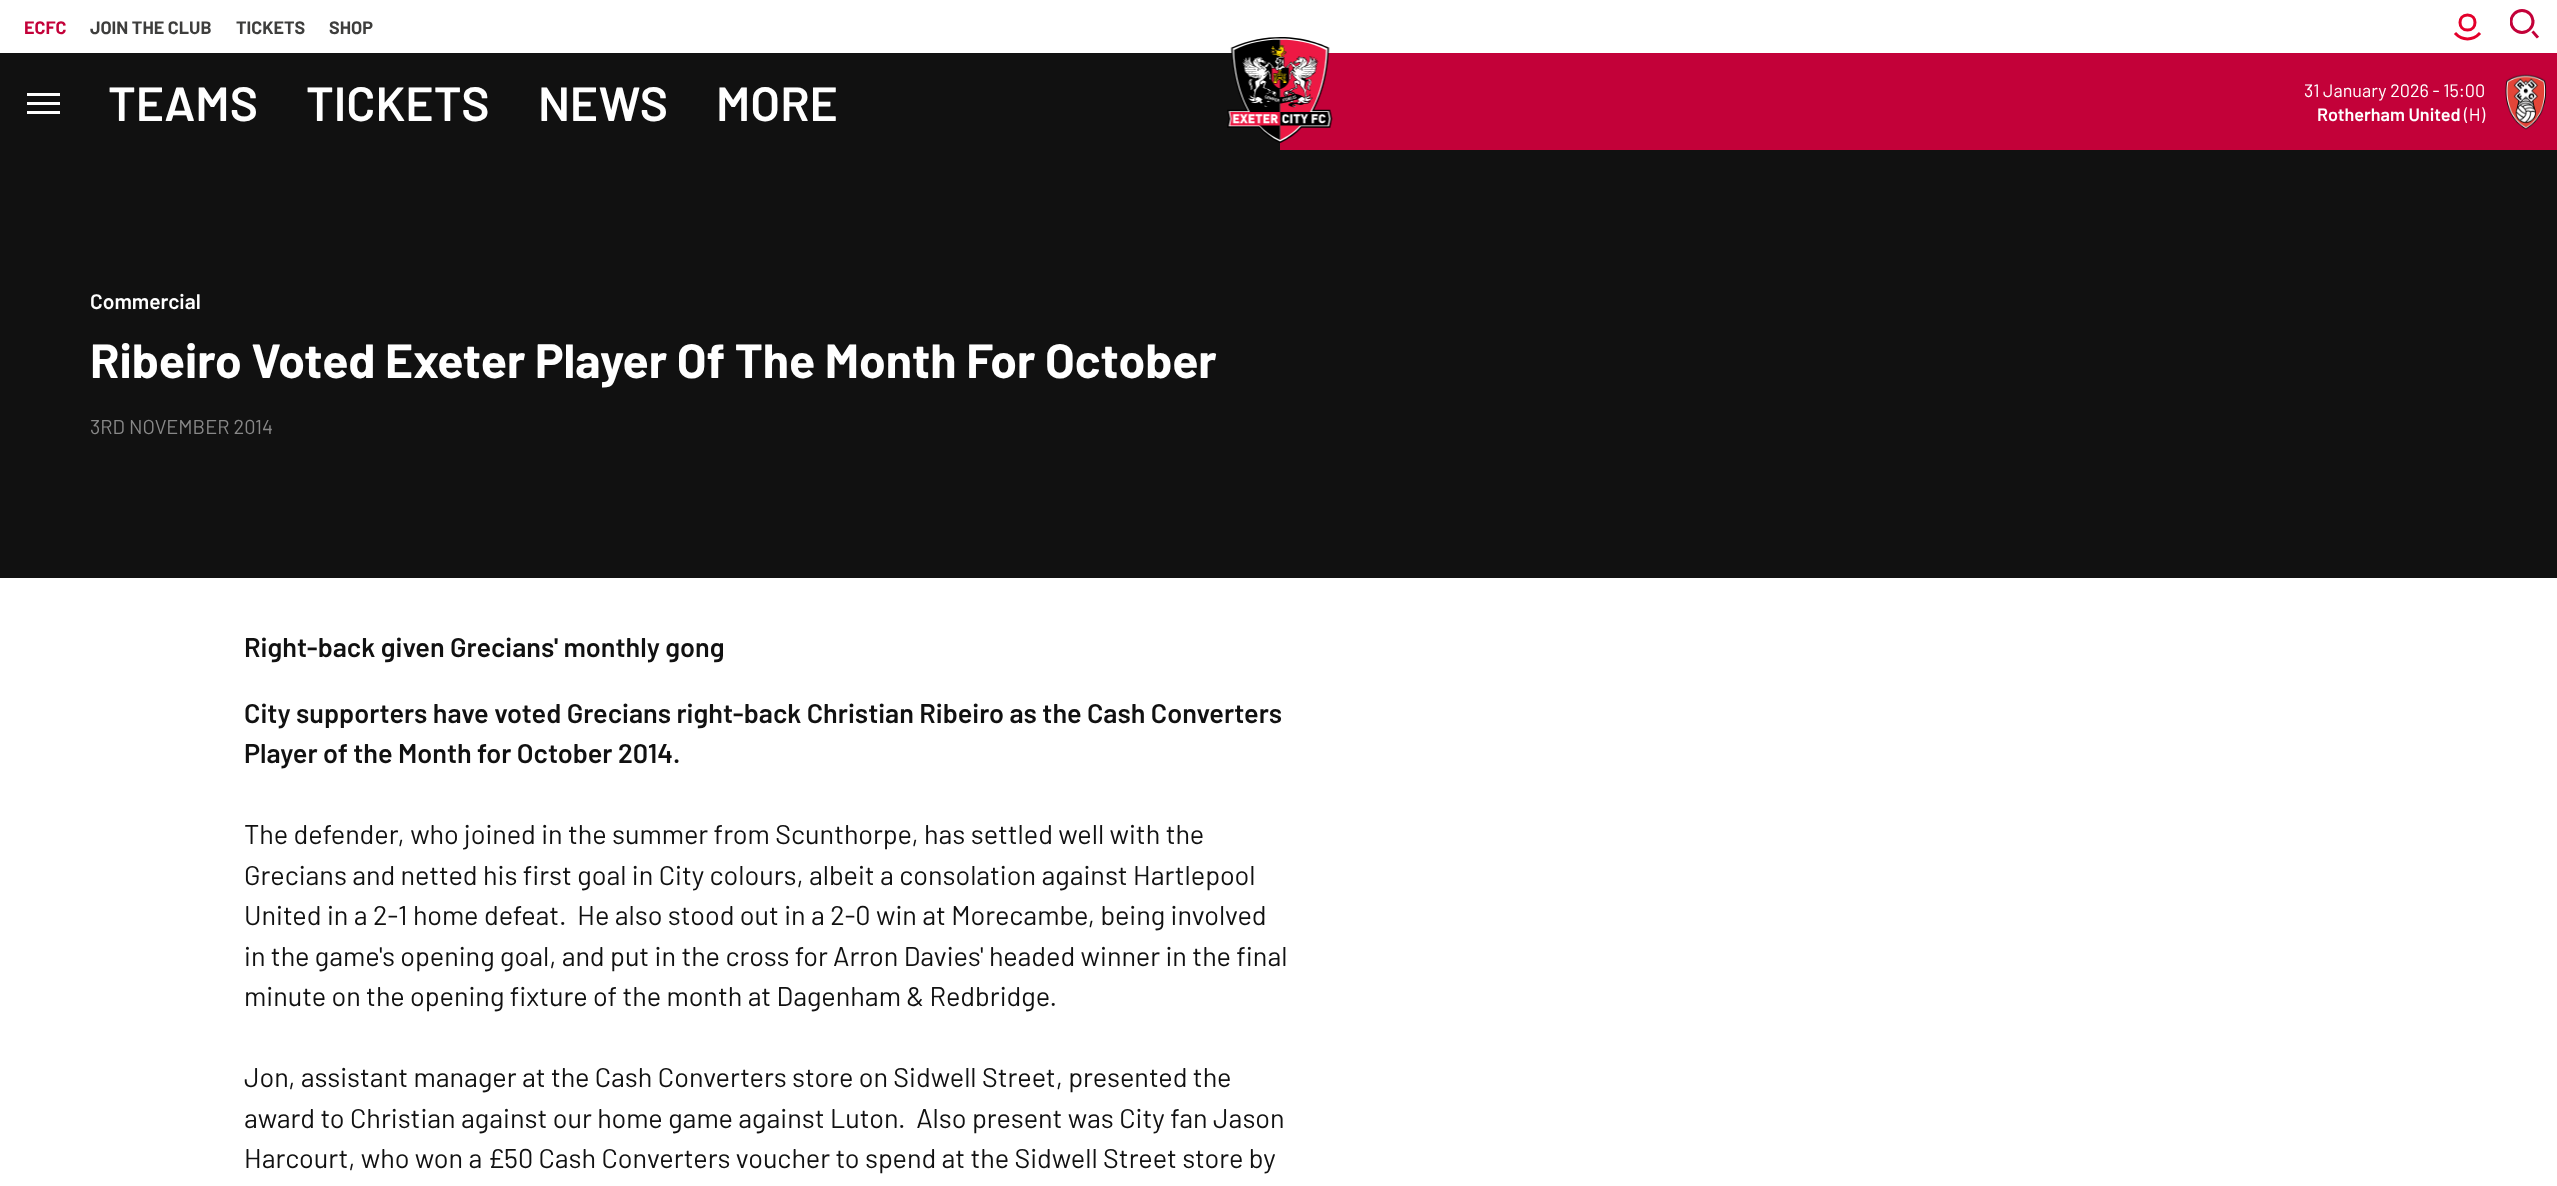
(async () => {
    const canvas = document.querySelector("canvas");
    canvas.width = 2557;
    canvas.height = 1186;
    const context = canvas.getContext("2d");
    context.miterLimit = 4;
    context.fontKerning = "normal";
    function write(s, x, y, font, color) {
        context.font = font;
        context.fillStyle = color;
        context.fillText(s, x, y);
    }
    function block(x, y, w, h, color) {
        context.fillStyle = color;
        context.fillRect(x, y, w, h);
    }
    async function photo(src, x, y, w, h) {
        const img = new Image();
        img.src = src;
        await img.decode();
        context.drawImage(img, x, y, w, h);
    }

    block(0, 0, 2557, 1186, "rgb(255, 255, 255)");
    write("ECFC", 24, 34, "bold 18px Barlow", "rgb(195, 1, 57)");
    write("JOIN THE CLUB", 90, 34, "bold 18px Barlow", "rgb(62, 62, 61)");
    write("TICKETS", 236, 34, "bold 18px Barlow", "rgb(62, 62, 61)");
    write("SHOP", 329, 34, "bold 18px Barlow", "rgb(62, 62, 61)");
    context.beginPath();
    context.moveTo(2467.5, 15);
    context.bezierCurveTo(2457.5, 15, 2457.5, 30, 2467.5, 30);
    context.bezierCurveTo(2477.5, 30, 2477.5, 15, 2467.5, 15);
    context.closePath();
    context.strokeStyle = "rgb(228, 0, 43)";
    context.lineWidth = 3;
    context.stroke();
    context.beginPath();
    context.moveTo(2479, 34);
    context.bezierCurveTo(2473, 40.5, 2462, 40.5, 2456, 34);
    context.lineCap = "square";
    context.stroke();
    context.save();
    context.beginPath();
    context.rect(2510, 9, 36, 36);
    context.clip();
    context.beginPath();
    context.arc(2522, 21.5, 11, 0, Math.PI * 2);
    context.strokeStyle = "rgb(195, 1, 57)";
    context.stroke();
    context.restore();
    context.beginPath();
    context.moveTo(2537, 36.5);
    context.lineTo(2533.5, 32.5);
    context.strokeStyle = "rgb(195, 1, 57)";
    context.stroke();
    block(0, 53, 1280, 97, "rgb(17, 17, 17)");
    block(1280, 53, 1277, 97, "rgb(195, 1, 57)");
    await photo("media/1.png", 1227, 37, 106, 106);
    block(27, 102, 33, 3, "rgb(255, 255, 255)");
    block(27, 93, 33, 3, "rgb(255, 255, 255)");
    block(27, 111, 33, 3, "rgb(255, 255, 255)");
    write("TEAMS", 108, 121, "600 48px Barlow", "rgb(255, 255, 255)");
    write("TICKETS", 306, 121, "600 48px Barlow", "rgb(255, 255, 255)");
    write("NEWS", 538, 121, "600 48px Barlow", "rgb(255, 255, 255)");
    write("MORE", 716, 121, "600 48px Barlow", "rgb(255, 255, 255)");
    write("31 January 2026 - 15:00", 2304, 97, "18px Barlow", "rgb(255, 255, 255)");
    await photo("media/2.png", 2505, 74, 42, 56);
    write("Rotherham United", 2317, 121, "600 18px Barlow", "rgb(255, 255, 255)");
    write("(H)", 2464, 121, "18px Barlow", "rgb(255, 255, 255)");
    block(0, 150, 2557, 428, "rgb(17, 17, 17)");
    write("Commercial", 90, 309, "600 21px Barlow", "rgb(255, 255, 255)");
    write("Ribeiro Voted Exeter Player Of The Month For October", 90, 378, "bold 48px Barlow", "rgb(255, 255, 255)");
    write("3RD NOVEMBER 2014", 90, 434, "20px Barlow", "rgb(136, 136, 136)");
    write("Right-back given Grecians' monthly gong", 244, 657, "600 27px Barlow", "rgb(17, 17, 17)");
    write("City supporters have voted Grecians right-back Christian Ribeiro as the Cash Converters", 244, 723, "600 27px Barlow", "rgb(17, 17, 17)");
    write("Player of the Month for October 2014.", 244, 763, "600 27px Barlow", "rgb(17, 17, 17)");
    write("The defender, who joined in the summer from Scunthorpe, has settled well with the", 244, 844, "27px Barlow", "rgb(17, 17, 17)");
    write("Grecians and netted his first goal in City colours, albeit a consolation against Hartlepool", 244, 885, "27px Barlow", "rgb(17, 17, 17)");
    write("United in a 2-1 home defeat.  He also stood out in a 2-0 win at Morecambe, being involved", 244, 925, "27px Barlow", "rgb(17, 17, 17)");
    write("in the game's opening goal, and put in the cross for Arron Davies' headed winner in the final", 244, 966, "27px Barlow", "rgb(17, 17, 17)");
    write("minute on the opening fixture of the month at Dagenham & Redbridge.", 244, 1006, "27px Barlow", "rgb(17, 17, 17)");
    write("Jon, assistant manager at the Cash Converters store on Sidwell Street, presented the", 244, 1087, "27px Barlow", "rgb(17, 17, 17)");
    write("award to Christian against our home game against Luton.  Also present was City fan Jason", 244, 1128, "27px Barlow", "rgb(17, 17, 17)");
    write("Harcourt, who won a £50 Cash Converters voucher to spend at the Sidwell Street store by", 244, 1168, "27px Barlow", "rgb(17, 17, 17)");
})();
